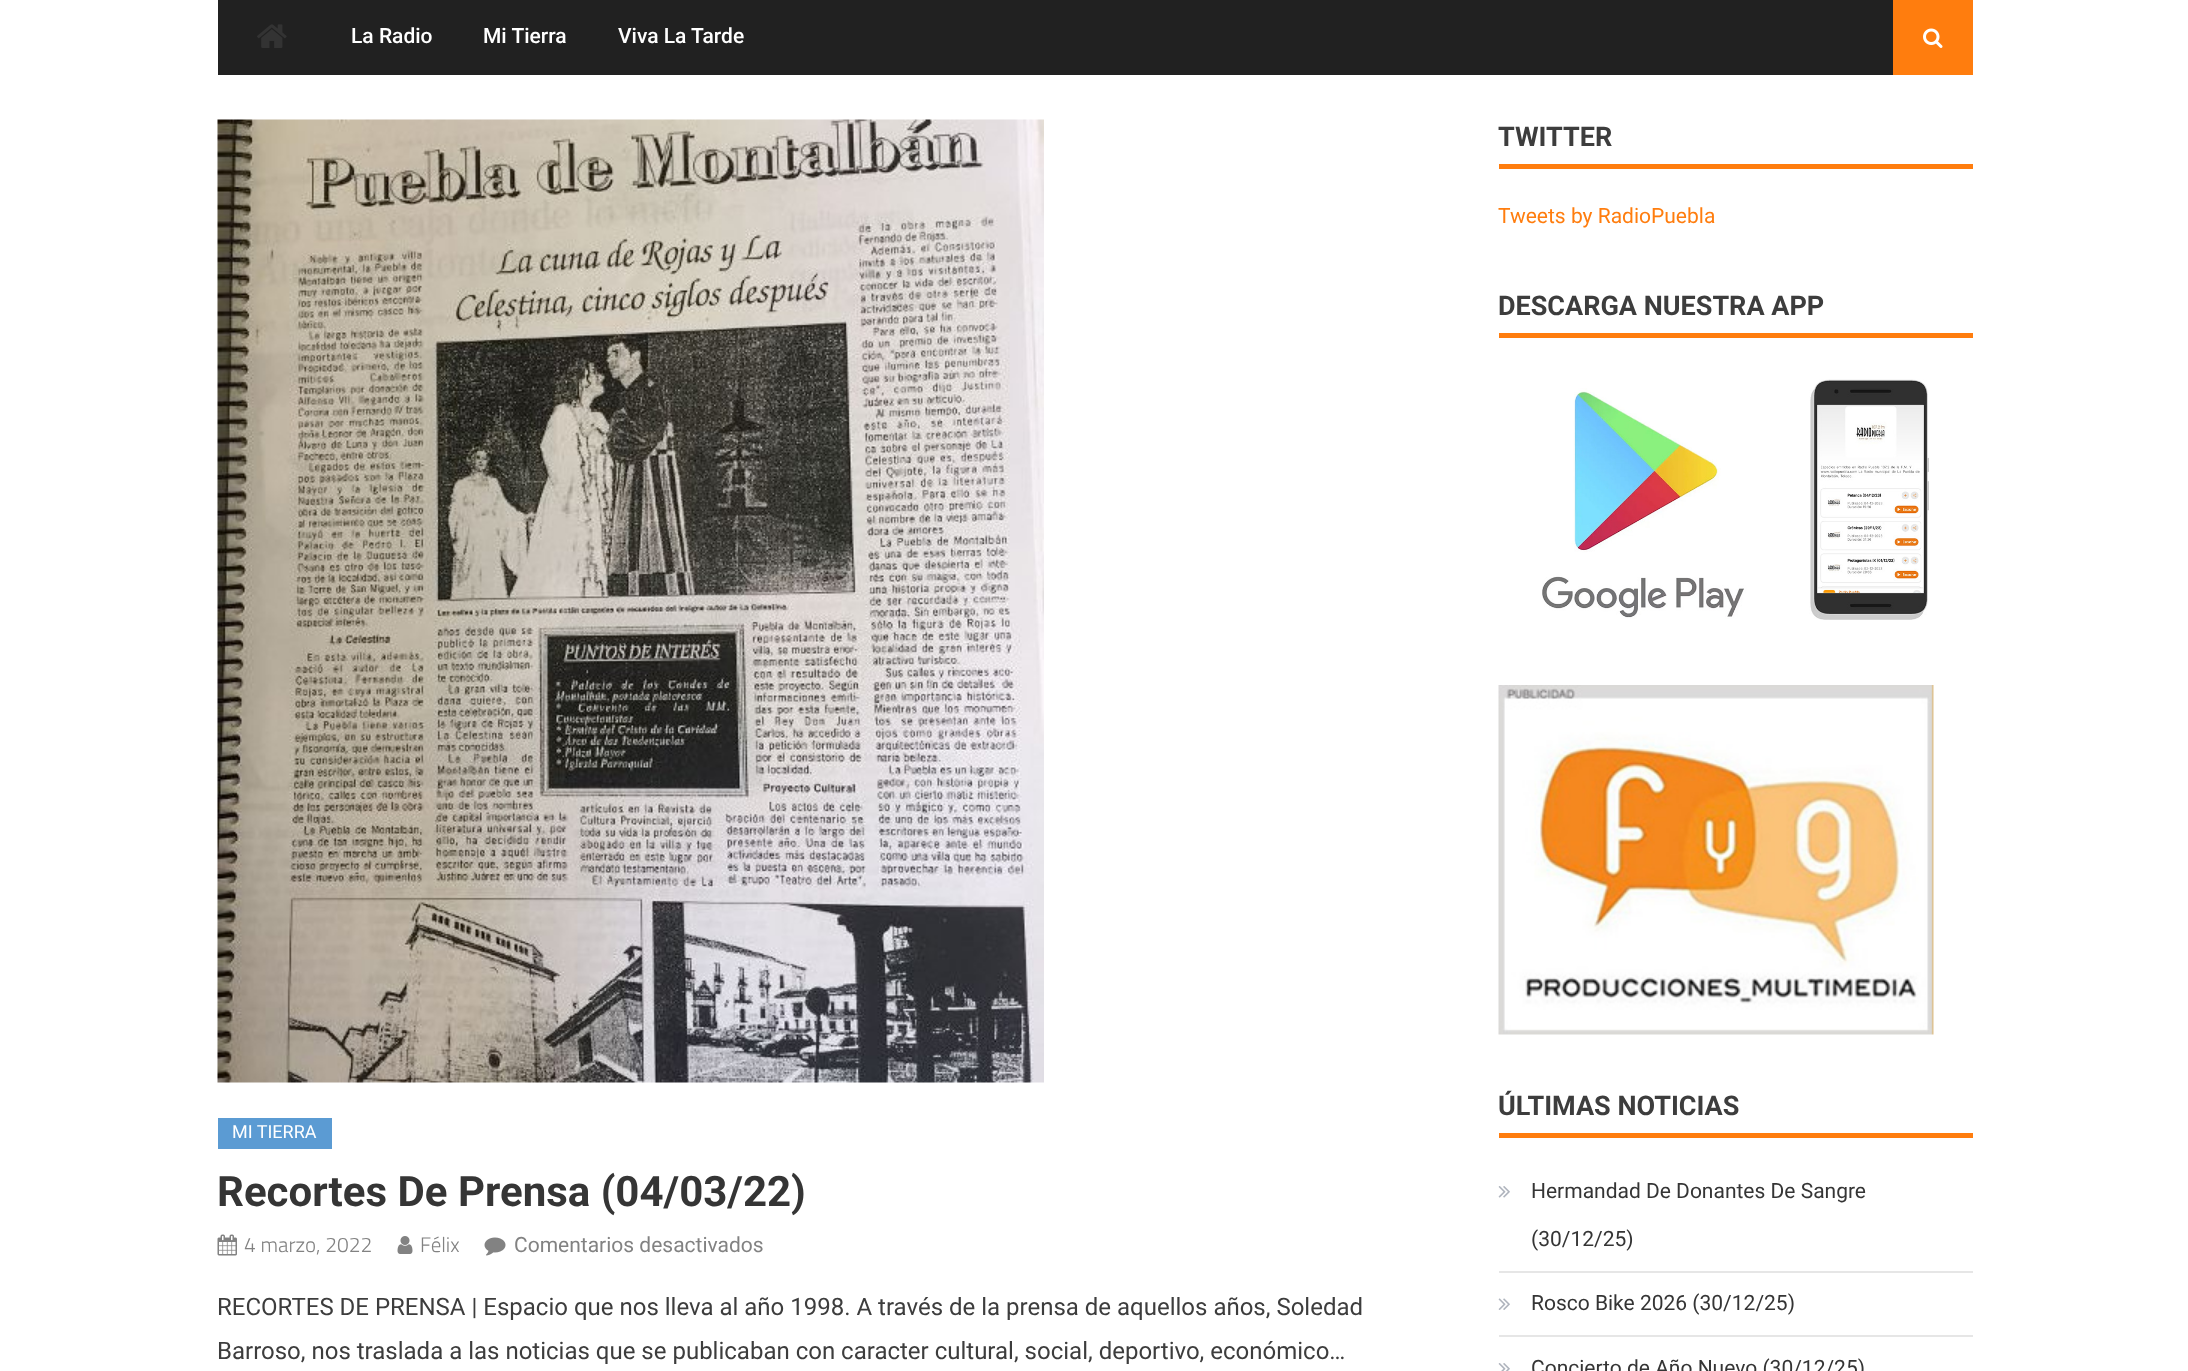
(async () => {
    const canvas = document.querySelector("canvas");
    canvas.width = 2188;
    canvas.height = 1371;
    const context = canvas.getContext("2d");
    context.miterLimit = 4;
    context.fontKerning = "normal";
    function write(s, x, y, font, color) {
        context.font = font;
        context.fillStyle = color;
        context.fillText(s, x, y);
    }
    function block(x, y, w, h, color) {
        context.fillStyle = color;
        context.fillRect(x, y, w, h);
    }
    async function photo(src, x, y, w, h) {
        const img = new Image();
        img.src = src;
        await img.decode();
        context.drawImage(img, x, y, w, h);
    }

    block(0, 0, 2188, 1371, "rgb(255, 255, 255)");
    block(218, 0, 1675, 75, "rgb(33, 33, 33)");
    await photo("media/1.png", 257, 24, 30, 24);
    write("La Radio", 351, 43, "500 21px Roboto", "rgb(255, 255, 255)");
    write("Mi Tierra", 483, 43, "500 21px Roboto", "rgb(255, 255, 255)");
    write("Viva La Tarde", 618, 43, "500 21px Roboto", "rgb(255, 255, 255)");
    block(1893, 0, 80, 75, "rgb(255, 125, 14)");
    await photo("media/2.png", 1923, 28, 20, 20);
    await photo("media/3.png", 217, 119, 827, 964);
    block(218, 1118, 114, 31, "rgb(91, 155, 211)");
    write("MI TIERRA", 232, 1138, "18px Roboto", "rgb(255, 255, 255)");
    write("Recortes De Prensa (04/03/22)", 217, 1206, "bold 42px Roboto", "rgb(53, 53, 53)");
    await photo("media/4.png", 217, 1234, 20, 22);
    write("4 marzo, 2022", 244, 1252, "300 21px Titillium Web", "rgb(130, 130, 130)");
    await photo("media/5.png", 397, 1236, 16, 18);
    write("Félix", 420, 1252, "300 21px Titillium Web", "rgb(130, 130, 130)");
    await photo("media/6.png", 484, 1237, 22, 19);
    write("Comentarios desactivados", 514, 1252, "21px Roboto", "rgb(130, 130, 130)");
    write("RECORTES DE PRENSA | Espacio que nos lleva al año 1998. A través de la prensa de aquellos años, Soledad", 217, 1315, "24px Roboto", "rgb(61, 61, 61)");
    write("Barroso, nos traslada a las noticias que se publicaban con caracter cultural, social, deportivo, económico…", 217, 1359, "24px Roboto", "rgb(61, 61, 61)");
    block(1499, 164, 474, 5, "rgb(255, 125, 14)");
    write("TWITTER", 1498, 146, "bold 27px Roboto", "rgb(61, 61, 61)");
    write("Tweets by RadioPuebla", 1498, 223, "21px Roboto", "rgb(255, 125, 14)");
    block(1499, 333, 474, 5, "rgb(255, 125, 14)");
    write("DESCARGA NUESTRA APP", 1498, 315, "bold 27px Roboto", "rgb(61, 61, 61)");
    await photo("media/7.png", 1542, 379, 387, 241);
    await photo("media/8.png", 1498, 685, 436, 350);
    block(1499, 1133, 474, 5, "rgb(255, 125, 14)");
    write("ÚLTIMAS NOTICIAS", 1498, 1115, "bold 27px Roboto", "rgb(61, 61, 61)");
    block(1499, 1271, 474, 2, "rgb(230, 230, 230)");
    await photo("media/9.png", 1498, 1186, 12, 12);
    write("Hermandad De Donantes De Sangre", 1531, 1198, "21px Roboto", "rgb(53, 53, 53)");
    write("(30/12/25)", 1531, 1246, "21px Roboto", "rgb(53, 53, 53)");
    block(1499, 1335, 474, 2, "rgb(230, 230, 230)");
    await photo("media/10.png", 1498, 1298, 12, 12);
    write("Rosco Bike 2026 (30/12/25)", 1531, 1310, "21px Roboto", "rgb(53, 53, 53)");
    await photo("media/11.png", 1498, 1363, 12, 8);
    write("Concierto de Año Nuevo (30/12/25)", 1531, 1375, "21px Roboto", "rgb(53, 53, 53)");
})();
